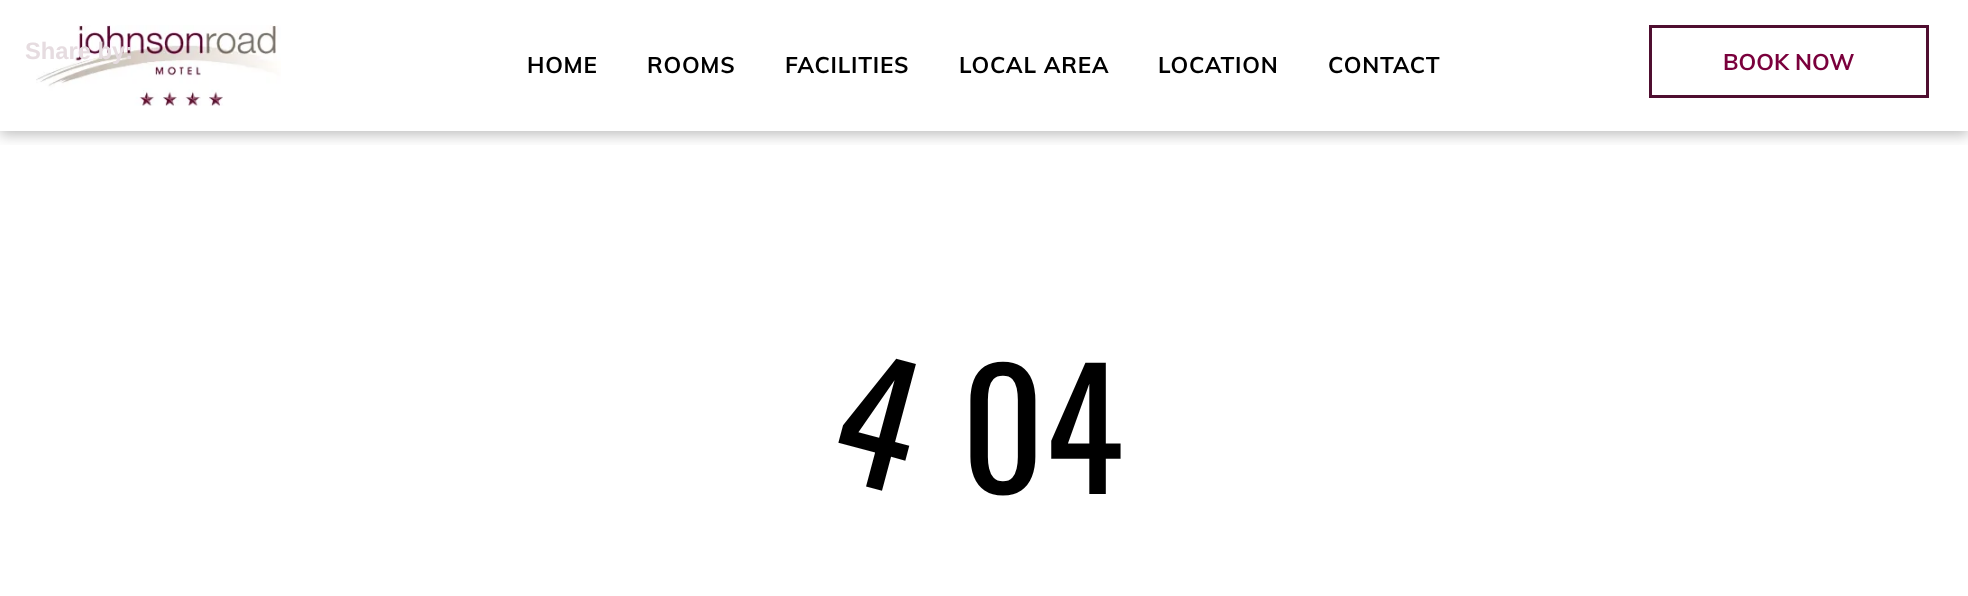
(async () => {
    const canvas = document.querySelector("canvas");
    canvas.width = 1968;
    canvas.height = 596;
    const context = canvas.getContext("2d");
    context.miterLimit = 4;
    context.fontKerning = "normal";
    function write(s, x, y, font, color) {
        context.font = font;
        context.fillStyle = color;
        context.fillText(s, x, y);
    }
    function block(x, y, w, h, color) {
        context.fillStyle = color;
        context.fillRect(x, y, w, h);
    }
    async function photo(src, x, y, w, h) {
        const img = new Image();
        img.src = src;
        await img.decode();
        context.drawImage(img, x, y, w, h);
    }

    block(0, 0, 1968, 596, "rgb(255, 255, 255)");
    context.save();
    context.beginPath();
    context.rect(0, 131, 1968, 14);
    context.clip();
    context.fillStyle = "rgba(0, 0, 0, 0.25)";
    context.filter = "blur(7px)";
    context.beginPath();
    context.rect(0, 4, 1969, 131);
    context.fill();
    context.filter = "none";
    context.restore();
    await photo("media/1.png", 36, 25, 245, 81);
    write("Share by:", 25, 59, "bold 23.75px Liberation Sans", "rgb(230, 220, 224)");
    context.letterSpacing = "0.75px";
    write("HOME", 527, 73, "bold 22.5px Muli", "rgb(0, 0, 0)");
    write("ROOMS", 647, 73, "bold 22.5px Muli", "rgb(0, 0, 0)");
    write("FACILITIES", 785, 73, "bold 22.5px Muli", "rgb(0, 0, 0)");
    write("LOCAL AREA", 959, 73, "bold 22.5px Muli", "rgb(0, 0, 0)");
    write("LOCATION", 1158, 73, "bold 22.5px Muli", "rgb(0, 0, 0)");
    write("CONTACT", 1328, 73, "bold 22.5px Muli", "rgb(0, 0, 0)");
    context.strokeStyle = "rgb(79, 14, 48)";
    context.lineWidth = 3;
    context.strokeRect(1650.5, 26.5, 277, 70);
    context.letterSpacing = "0px";
    write("BOOK NOW", 1723, 70, "bold 22.5px Muli", "rgb(122, 0, 60)");
    context.font = "162px Oswald";
    context.fillStyle = "rgb(0, 0, 0)";
    context.save();
    context.translate(823, 475);
    context.rotate(15 * Math.PI / 180);
    context.fillText("4", 0, 0);
    context.restore();
    write("04", 961, 494, "162px Oswald", "rgb(0, 0, 0)");
})();
